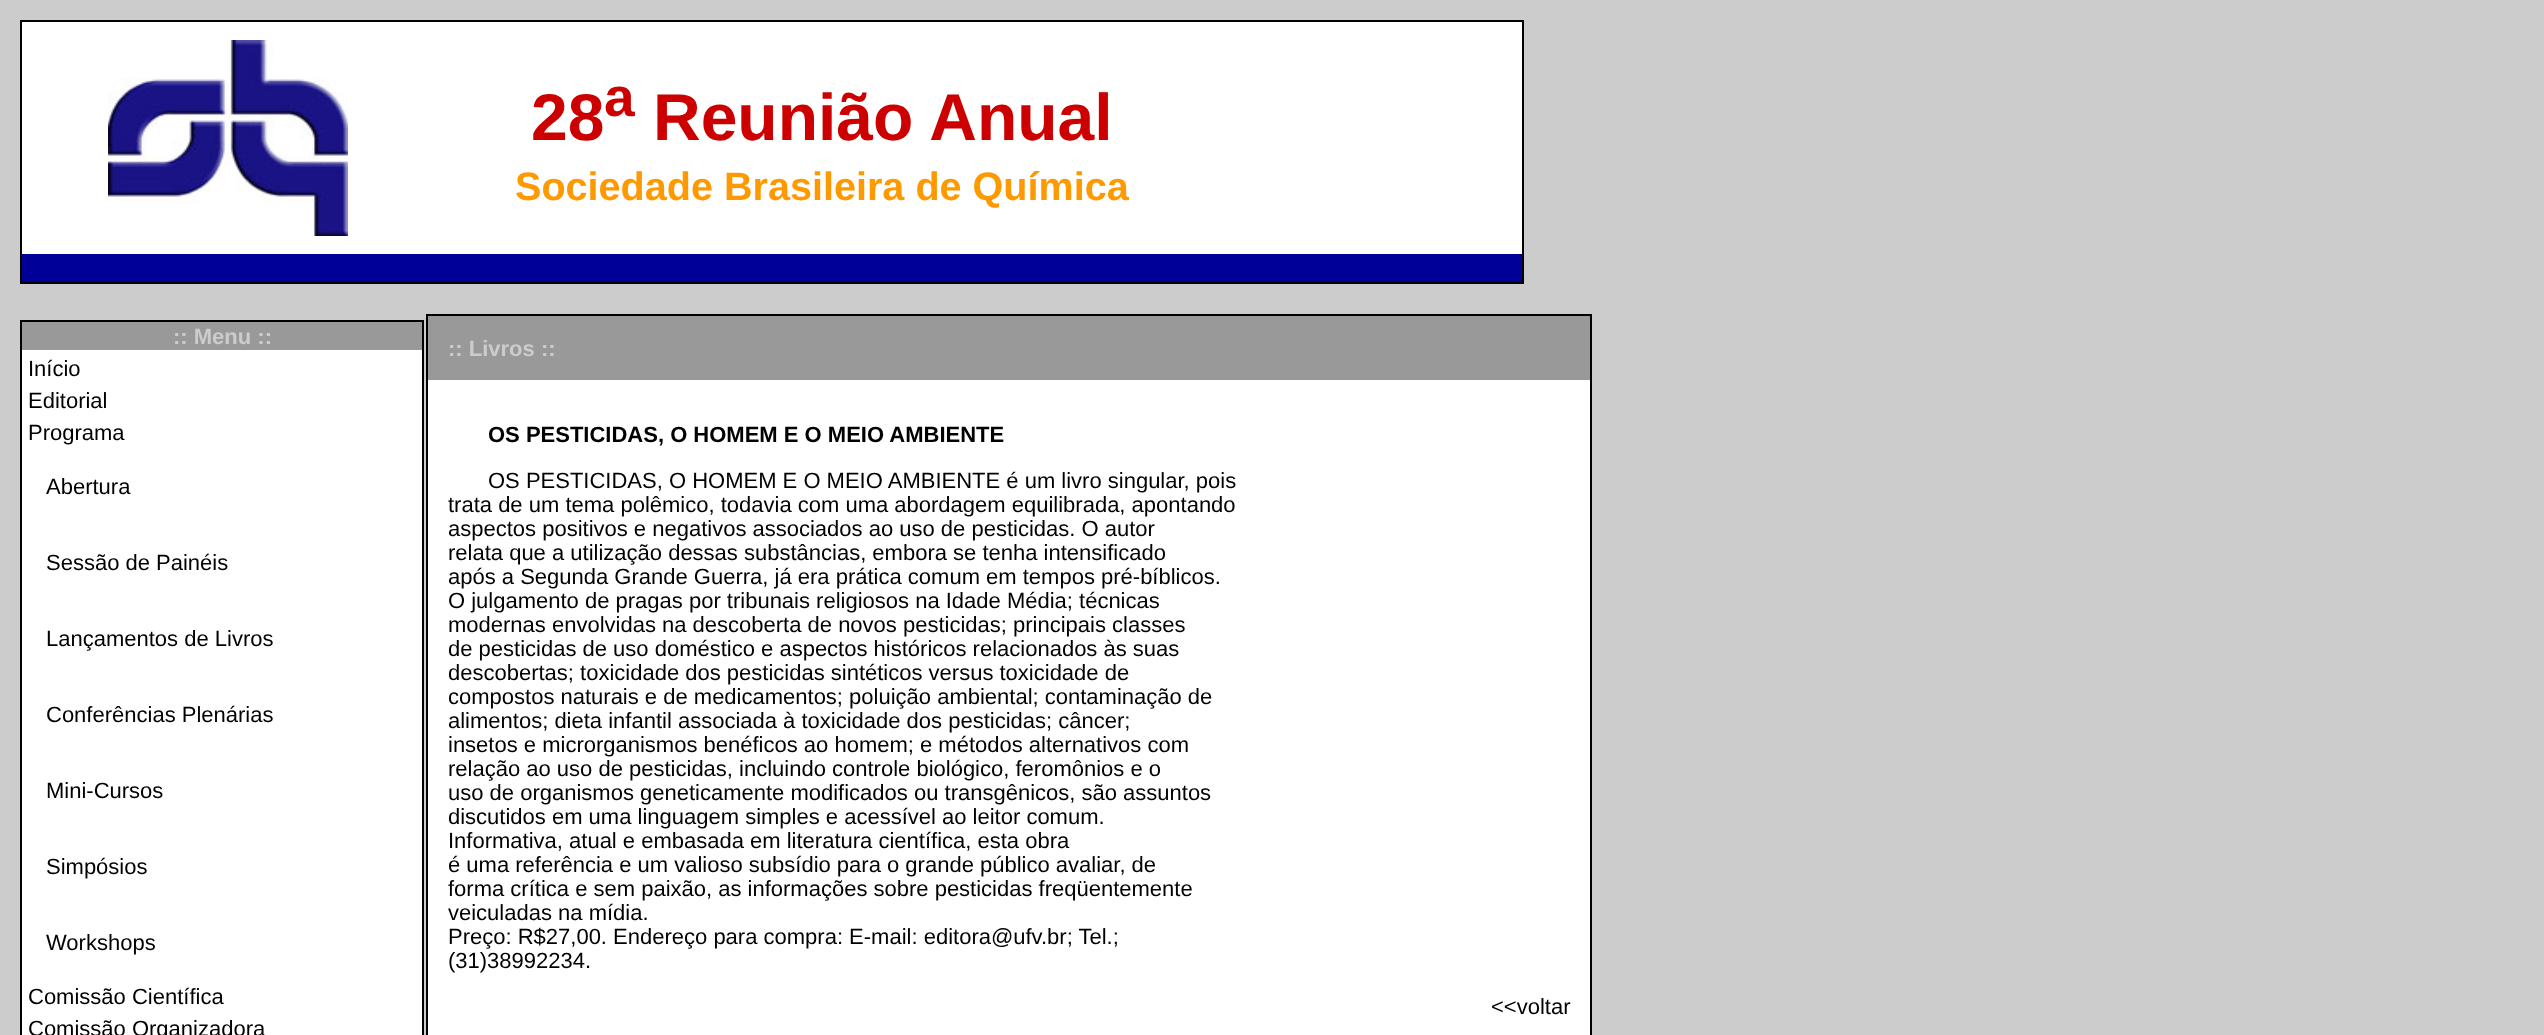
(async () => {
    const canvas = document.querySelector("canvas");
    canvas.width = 2544;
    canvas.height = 1035;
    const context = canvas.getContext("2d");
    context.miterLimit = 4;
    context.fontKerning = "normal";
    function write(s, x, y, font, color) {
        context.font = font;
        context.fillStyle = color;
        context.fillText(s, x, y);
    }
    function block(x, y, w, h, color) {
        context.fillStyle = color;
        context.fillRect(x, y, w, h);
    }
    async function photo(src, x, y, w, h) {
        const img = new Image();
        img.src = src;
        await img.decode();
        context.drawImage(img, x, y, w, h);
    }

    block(0, 0, 2544, 1035, "rgb(204, 204, 204)");
    block(22, 22, 1500, 232, "rgb(255, 255, 255)");
    context.strokeStyle = "rgb(0, 0, 0)";
    context.lineWidth = 2;
    context.strokeRect(21, 21, 1502, 262);
    await photo("media/1.png", 108, 40, 240, 196);
    write("28", 531, 140, "bold 66px Liberation Sans", "rgb(204, 0, 0)");
    write("a", 604, 116, "bold 55px Liberation Sans", "rgb(204, 0, 0)");
    write("Reunião Anual", 653, 140, "bold 66px Liberation Sans", "rgb(204, 0, 0)");
    write("Sociedade Brasileira de Química", 515, 200, "bold 39.6px Liberation Sans", "rgb(255, 153, 0)");
    block(22, 254, 1500, 28, "rgb(0, 0, 153)");
    block(22, 350, 400, 685, "rgb(255, 255, 255)");
    context.strokeRect(21, 321, 402, 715);
    block(22, 322, 400, 28, "rgb(153, 153, 153)");
    write(":: Menu ::", 173, 344, "bold 22px Liberation Sans", "rgb(204, 204, 204)");
    write("Início", 28, 376, "22px Liberation Sans", "rgb(0, 0, 0)");
    write("Editorial", 28, 408, "22px Liberation Sans", "rgb(0, 0, 0)");
    write("Programa", 28, 440, "22px Liberation Sans", "rgb(0, 0, 0)");
    write("Abertura", 46, 494, "22px Liberation Sans", "rgb(0, 0, 0)");
    write("Sessão de Painéis", 46, 570, "22px Liberation Sans", "rgb(0, 0, 0)");
    write("Lançamentos de Livros", 46, 646, "22px Liberation Sans", "rgb(0, 0, 0)");
    write("Conferências Plenárias", 46, 722, "22px Liberation Sans", "rgb(0, 0, 0)");
    write("Mini-Cursos", 46, 798, "22px Liberation Sans", "rgb(0, 0, 0)");
    write("Simpósios", 46, 874, "22px Liberation Sans", "rgb(0, 0, 0)");
    write("Workshops", 46, 950, "22px Liberation Sans", "rgb(0, 0, 0)");
    write("Comissão Científica", 28, 1004, "22px Liberation Sans", "rgb(0, 0, 0)");
    write("Comissão Organizadora", 28, 1036, "22px Liberation Sans", "rgb(0, 0, 0)");
    block(428, 380, 1162, 655, "rgb(255, 255, 255)");
    context.strokeRect(427, 315, 1164, 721);
    block(428, 316, 1162, 64, "rgb(153, 153, 153)");
    write(":: Livros ::", 448, 356, "bold 22px Liberation Sans", "rgb(204, 204, 204)");
    write("OS PESTICIDAS, O HOMEM E O MEIO AMBIENTE", 488, 442, "bold 22px Liberation Sans", "rgb(0, 0, 0)");
    write("OS PESTICIDAS, O HOMEM E O MEIO AMBIENTE é um livro singular, pois", 488, 488, "22px Liberation Sans", "rgb(0, 0, 0)");
    write("trata de um tema polêmico, todavia com uma abordagem equilibrada, apontando", 448, 512, "22px Liberation Sans", "rgb(0, 0, 0)");
    write("aspectos positivos e negativos associados ao uso de pesticidas. O autor", 448, 536, "22px Liberation Sans", "rgb(0, 0, 0)");
    write("relata que a utilização dessas substâncias, embora se tenha intensificado", 448, 560, "22px Liberation Sans", "rgb(0, 0, 0)");
    write("após a Segunda Grande Guerra, já era prática comum em tempos pré-bíblicos.", 448, 584, "22px Liberation Sans", "rgb(0, 0, 0)");
    write("O julgamento de pragas por tribunais religiosos na Idade Média; técnicas", 448, 608, "22px Liberation Sans", "rgb(0, 0, 0)");
    write("modernas envolvidas na descoberta de novos pesticidas; principais classes", 448, 632, "22px Liberation Sans", "rgb(0, 0, 0)");
    write("de pesticidas de uso doméstico e aspectos históricos relacionados às suas", 448, 656, "22px Liberation Sans", "rgb(0, 0, 0)");
    write("descobertas; toxicidade dos pesticidas sintéticos versus toxicidade de", 448, 680, "22px Liberation Sans", "rgb(0, 0, 0)");
    write("compostos naturais e de medicamentos; poluição ambiental; contaminação de", 448, 704, "22px Liberation Sans", "rgb(0, 0, 0)");
    write("alimentos; dieta infantil associada à toxicidade dos pesticidas; câncer;", 448, 728, "22px Liberation Sans", "rgb(0, 0, 0)");
    write("insetos e microrganismos benéficos ao homem; e métodos alternativos com", 448, 752, "22px Liberation Sans", "rgb(0, 0, 0)");
    write("relação ao uso de pesticidas, incluindo controle biológico, feromônios e o", 448, 776, "22px Liberation Sans", "rgb(0, 0, 0)");
    write("uso de organismos geneticamente modificados ou transgênicos, são assuntos", 448, 800, "22px Liberation Sans", "rgb(0, 0, 0)");
    write("discutidos em uma linguagem simples e acessível ao leitor comum.", 448, 824, "22px Liberation Sans", "rgb(0, 0, 0)");
    write("Informativa, atual e embasada em literatura científica, esta obra", 448, 848, "22px Liberation Sans", "rgb(0, 0, 0)");
    write("é uma referência e um valioso subsídio para o grande público avaliar, de", 448, 872, "22px Liberation Sans", "rgb(0, 0, 0)");
    write("forma crítica e sem paixão, as informações sobre pesticidas freqüentemente", 448, 896, "22px Liberation Sans", "rgb(0, 0, 0)");
    write("veiculadas na mídia.", 448, 920, "22px Liberation Sans", "rgb(0, 0, 0)");
    write("Preço: R$27,00. Endereço para compra: E-mail: editora@ufv.br; Tel.;", 448, 944, "22px Liberation Sans", "rgb(0, 0, 0)");
    write("(31)38992234.", 448, 968, "22px Liberation Sans", "rgb(0, 0, 0)");
    write("<<voltar", 1491, 1014, "22px Liberation Sans", "rgb(0, 0, 0)");
})();
